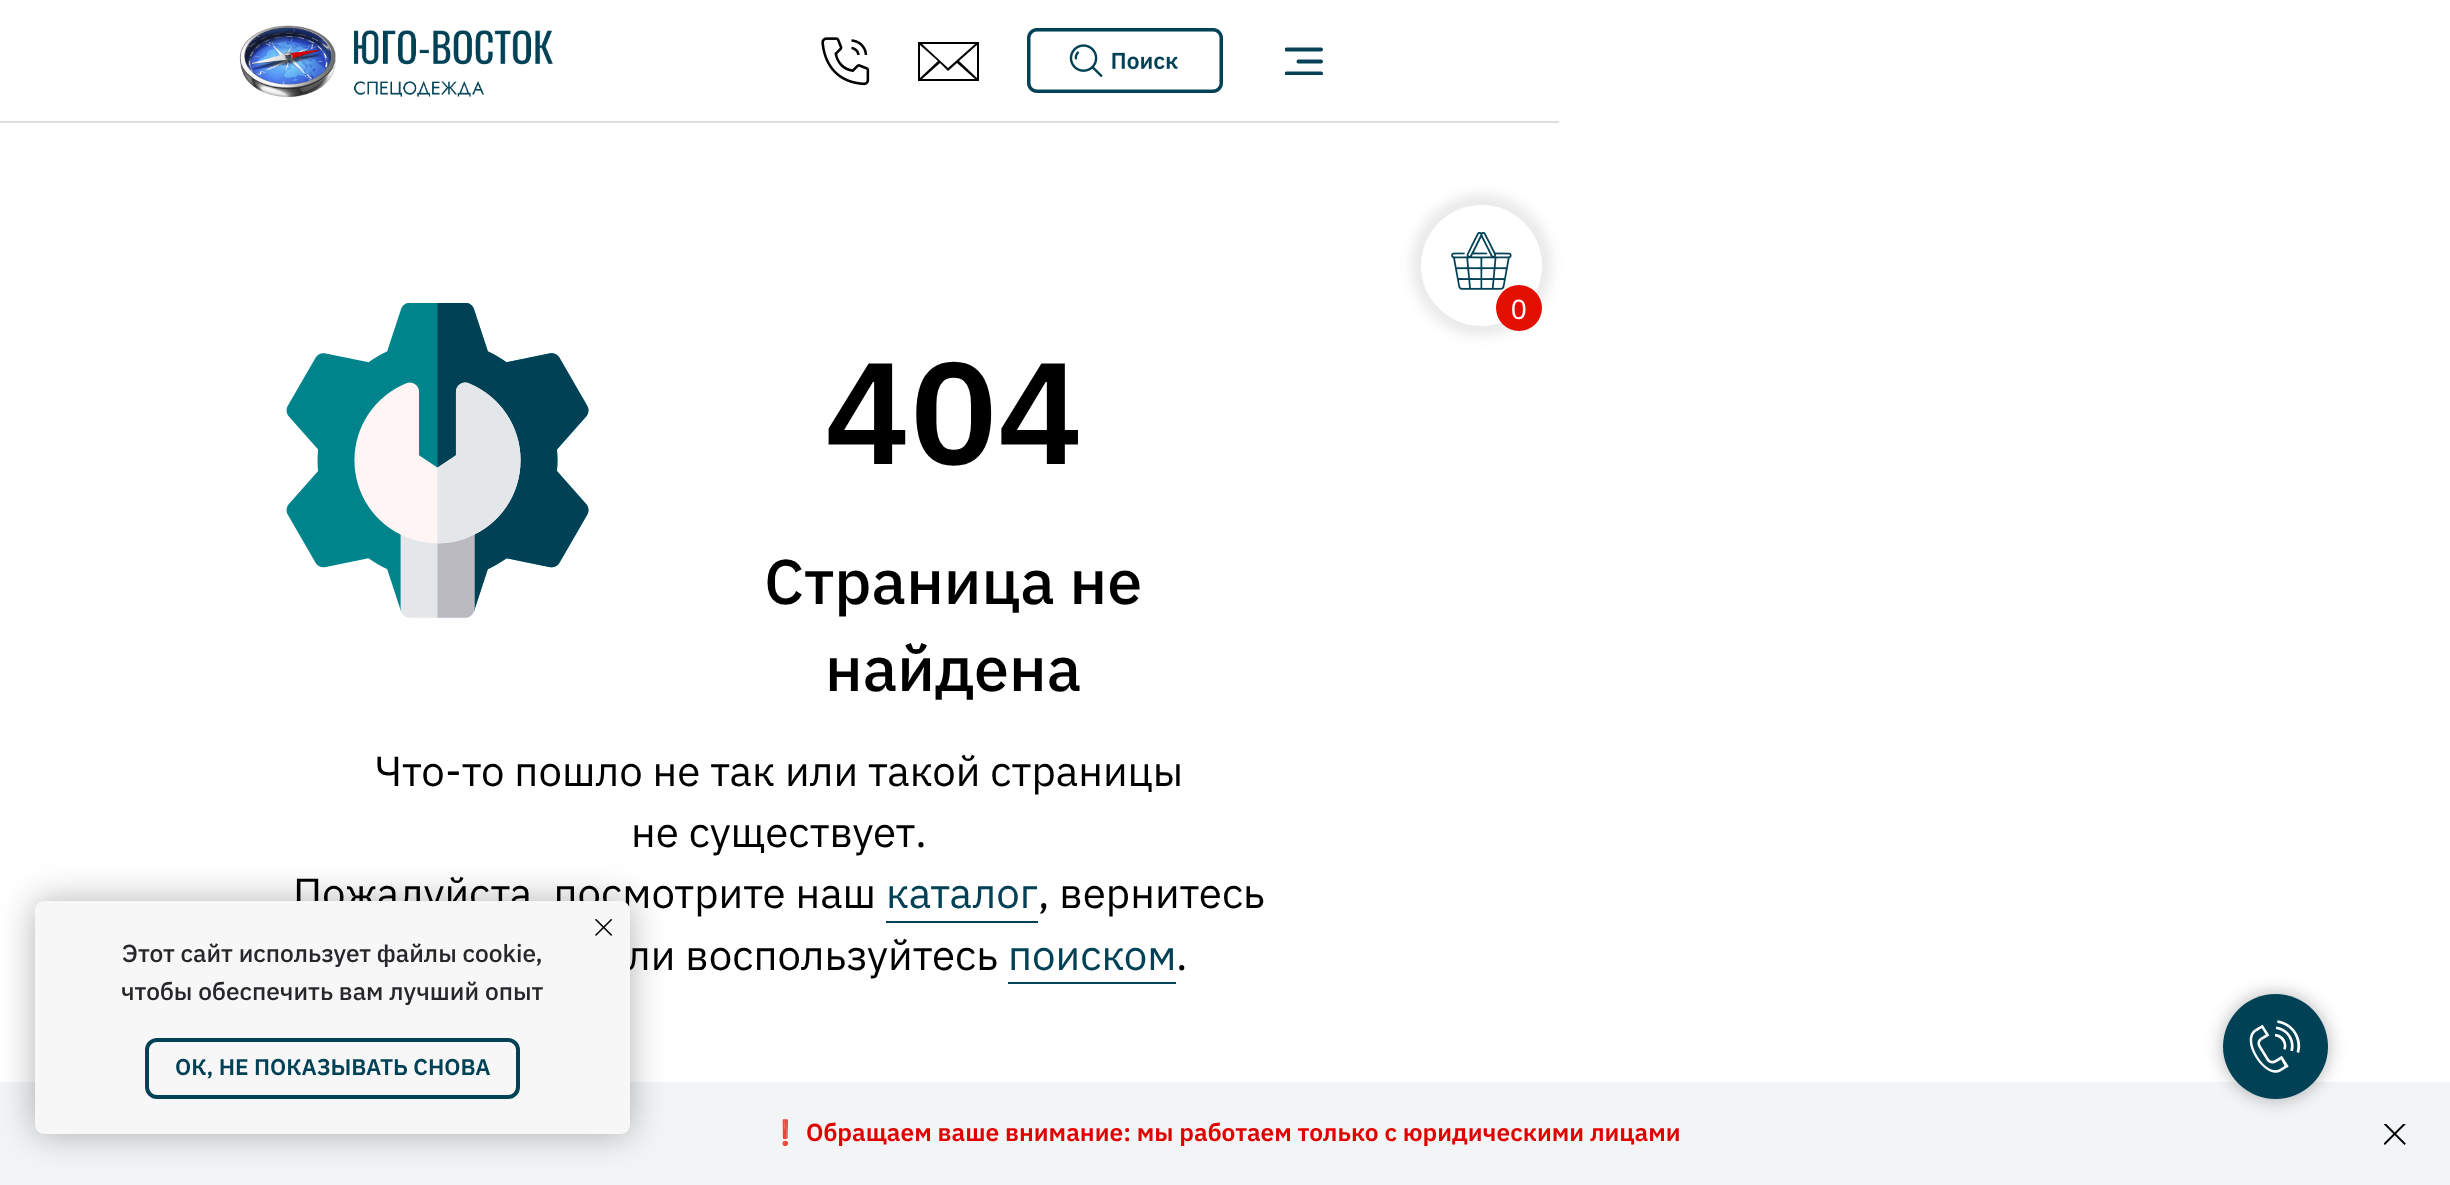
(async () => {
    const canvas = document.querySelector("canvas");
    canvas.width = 2450;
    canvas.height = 1185;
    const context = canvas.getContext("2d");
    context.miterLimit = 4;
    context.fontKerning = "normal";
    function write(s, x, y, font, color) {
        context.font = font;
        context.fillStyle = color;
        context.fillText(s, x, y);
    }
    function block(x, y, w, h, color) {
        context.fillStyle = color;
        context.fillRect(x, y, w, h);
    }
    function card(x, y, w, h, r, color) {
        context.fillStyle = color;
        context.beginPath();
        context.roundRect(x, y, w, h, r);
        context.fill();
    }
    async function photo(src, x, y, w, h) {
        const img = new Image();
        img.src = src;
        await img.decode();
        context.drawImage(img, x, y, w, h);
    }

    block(0, 0, 2450, 1185, "rgb(255, 255, 255)");
    context.fillStyle = "rgba(51, 51, 51, 0.1)";
    context.filter = "blur(6px)";
    context.beginPath();
    context.roundRect(1411, 194, 141, 142, 70.5);
    context.fill();
    context.filter = "none";
    context.fillStyle = "rgb(255, 255, 255)";
    context.beginPath();
    context.arc(1481.5, 265.5, 60.5, 0, Math.PI * 2);
    context.fill();
    await photo("media/1.png", 1451, 231, 61, 59);
    context.fillStyle = "rgb(227, 15, 0)";
    context.beginPath();
    context.arc(1519, 308, 23, 0, Math.PI * 2);
    context.fill();
    write("0", 1511, 319, "28px Liberation Sans", "rgb(255, 255, 255)");
    await photo("media/2.png", 286, 303, 303, 315);
    write("404", 824, 464, "600 144px IBM Plex Sans", "rgb(0, 0, 0)");
    write("Страница не", 764, 604, "500 63px IBM Plex Sans", "rgb(0, 0, 0)");
    write("найдена", 825, 691, "500 63px IBM Plex Sans", "rgb(0, 0, 0)");
    write("Что-то пошло не так или такой страницы", 375, 786, "42px IBM Plex Sans", "rgb(0, 0, 0)");
    write("не существует.", 631, 847, "42px IBM Plex Sans", "rgb(0, 0, 0)");
    write("Пожалуйста, посмотрите наш", 293, 908, "42px IBM Plex Sans", "rgb(0, 0, 0)");
    write("каталог", 886, 908, "42px IBM Plex Sans", "rgb(0, 65, 86)");
    block(886, 921, 152, 2, "rgb(0, 65, 86)");
    write(", вернитесь", 1038, 908, "42px IBM Plex Sans", "rgb(0, 0, 0)");
    write("ли воспользуйтесь", 627, 970, "42px IBM Plex Sans", "rgb(0, 0, 0)");
    write("поиском", 1008, 970, "42px IBM Plex Sans", "rgb(0, 65, 86)");
    block(1008, 982, 168, 2, "rgb(0, 65, 86)");
    write(".", 1176, 970, "42px IBM Plex Sans", "rgb(0, 0, 0)");
    await photo("media/3.png", 239, 25, 314, 73);
    await photo("media/4.png", 821, 37, 49, 49);
    context.beginPath();
    context.moveTo(918, 42);
    context.lineTo(918, 81);
    context.lineTo(979, 81);
    context.lineTo(979, 42);
    context.closePath();
    context.moveTo(948, 68);
    context.lineTo(922, 44);
    context.lineTo(975, 44);
    context.closePath();
    context.moveTo(938, 61);
    context.lineTo(920, 78);
    context.lineTo(920, 45);
    context.closePath();
    context.moveTo(940, 63);
    context.lineTo(948, 71);
    context.lineTo(957, 63);
    context.lineTo(975, 79);
    context.lineTo(922, 79);
    context.closePath();
    context.moveTo(959, 61);
    context.lineTo(977, 45);
    context.lineTo(977, 78);
    context.closePath();
    context.fill();
    await photo("media/5.png", 1027, 28, 196, 65);
    context.save();
    context.beginPath();
    context.rect(1285, 47, 38, 28);
    context.clip();
    context.beginPath();
    context.moveTo(1286.5, 49.5);
    context.lineTo(1321, 49.5);
    context.moveTo(1298.5, 61.5);
    context.lineTo(1321, 61.5);
    context.moveTo(1286.5, 73.5);
    context.lineTo(1321, 73.5);
    context.strokeStyle = "rgb(7, 65, 86)";
    context.lineWidth = 4;
    context.lineCap = "round";
    context.stroke();
    context.restore();
    block(0, 121, 1559, 2, "rgb(222, 222, 222)");
    block(0, 1082, 2450, 103, "rgb(242, 244, 246)");
    context.fillStyle = "rgba(0, 0, 0, 0.3)";
    context.filter = "blur(17.5px)";
    context.beginPath();
    context.roundRect(35, 901, 595, 233, 9);
    context.fill();
    context.filter = "none";
    card(35, 901, 595, 233, 9, "rgb(247, 247, 247)");
    await photo("media/6.png", 595, 919, 18, 17);
    write("Этот сайт использует файлы cookie,", 122, 962, "500 24.5px IBM Plex Sans", "rgb(38, 38, 43)");
    write("чтобы обеспечить вам лучший опыт", 121, 1000, "500 24.5px IBM Plex Sans", "rgb(38, 38, 43)");
    context.beginPath();
    context.roundRect(147, 1040, 371, 57, 10);
    context.strokeStyle = "rgb(0, 65, 86)";
    context.lineWidth = 4;
    context.stroke();
    write("ОК, НЕ ПОКАЗЫВАТЬ СНОВА", 175, 1075, "600 22.75px IBM Plex Sans", "rgb(0, 65, 86)");
    context.fillStyle = "rgba(0, 0, 0, 0.3)";
    context.filter = "blur(9px)";
    context.beginPath();
    context.roundRect(2223, 994, 105, 105, 52.5);
    context.fill();
    context.filter = "none";
    context.fillStyle = "rgb(0, 65, 86)";
    context.beginPath();
    context.arc(2275.5, 1046.5, 52.5, 0, Math.PI * 2);
    context.fill();
    await photo("media/7.png", 2249, 1020, 52, 53);
    write("❗️", 770, 1141, "bold 24.5px Noto Color Emoji", "rgb(224, 0, 0)");
    write("Обращаем ваше внимание: мы работаем только с юридическими лицами", 806, 1141, "600 24.5px IBM Plex Sans", "rgb(224, 0, 0)");
    await photo("media/8.png", 2384, 1124, 22, 21);
})();
